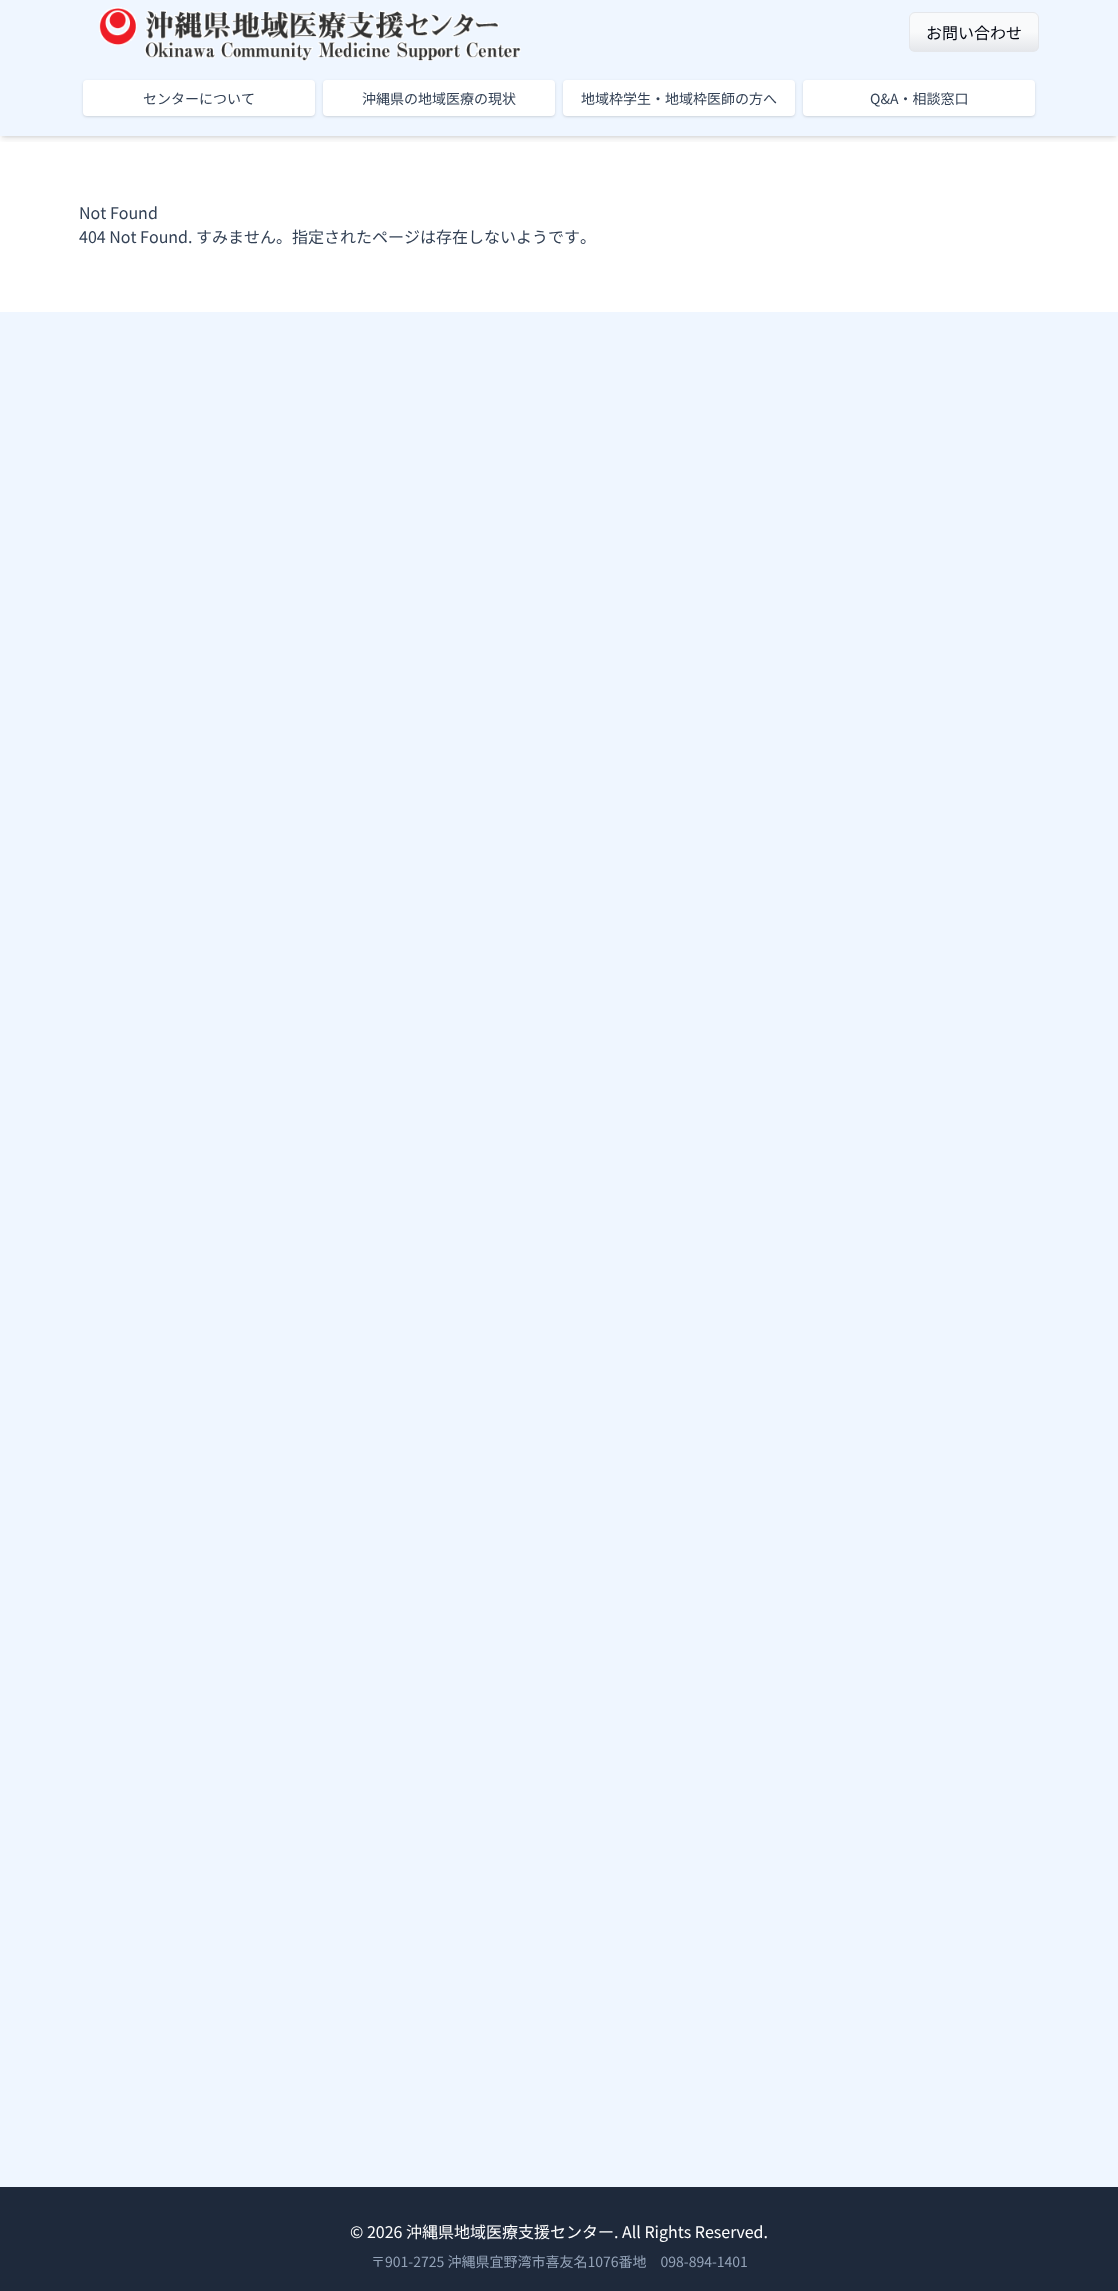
(async () => {
    const canvas = document.querySelector("canvas");
    canvas.width = 1118;
    canvas.height = 2291;
    const context = canvas.getContext("2d");
    context.miterLimit = 4;
    context.fontKerning = "none";
    function write(s, x, y, font, color) {
        context.font = font;
        context.fillStyle = color;
        context.fillText(s, x, y);
    }
    function block(x, y, w, h, color) {
        context.fillStyle = color;
        context.fillRect(x, y, w, h);
    }
    function card(x, y, w, h, r, color) {
        context.fillStyle = color;
        context.beginPath();
        context.roundRect(x, y, w, h, r);
        context.fill();
    }
    async function photo(src, x, y, w, h) {
        const img = new Image();
        img.src = src;
        await img.decode();
        context.drawImage(img, x, y, w, h);
    }
    let gradient;

    block(0, 0, 1118, 2291, "rgb(239, 246, 255)");
    block(0, 136, 1118, 176, "rgb(255, 255, 255)");
    context.save();
    context.beginPath();
    context.rect(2, 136, 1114, 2);
    context.clip();
    context.fillStyle = "rgba(0, 0, 0, 0.1)";
    context.filter = "blur(2px)";
    context.beginPath();
    context.rect(2, 4, 1114, 132);
    context.fill();
    context.filter = "none";
    context.restore();
    context.save();
    context.beginPath();
    context.rect(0, 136, 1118, 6);
    context.clip();
    context.fillStyle = "rgba(0, 0, 0, 0.1)";
    context.filter = "blur(3px)";
    context.beginPath();
    context.rect(1, 5, 1116, 134);
    context.fill();
    context.filter = "none";
    context.restore();
    await photo("media/1.png", 99, 7, 422, 54);
    context.save();
    context.beginPath();
    context.roundRect(909, 12, 130, 40, 6);
    context.clip();
    gradient = context.createLinearGradient(974, 13, 974, 51);
    gradient.addColorStop(0, "rgb(249, 250, 251)");
    gradient.addColorStop(0.5, "rgb(249, 250, 251)");
    gradient.addColorStop(1, "rgb(229, 231, 235)");
    context.fillStyle = gradient;
    context.fillRect(909, 13, 130, 38);
    context.restore();
    context.beginPath();
    context.roundRect(909.5, 12.5, 129, 39, 5.5);
    context.strokeStyle = "rgb(229, 231, 235)";
    context.stroke();
    write("お問い合わせ", 926, 39, "16px Noto Sans JP", "rgb(3, 7, 18)");
    context.fillStyle = "rgba(0, 0, 0, 0.1)";
    context.filter = "blur(1px)";
    context.beginPath();
    context.roundRect(84, 82, 230, 34, 3);
    context.fill();
    context.filter = "none";
    context.filter = "blur(1.5px)";
    context.beginPath();
    context.roundRect(83, 81, 232, 36, 4);
    context.fill();
    context.filter = "none";
    card(83, 80, 232, 36, 4, "rgb(255, 255, 255)");
    write("センターについて", 143, 104, "14px Noto Sans JP", "rgb(51, 65, 85)");
    context.fillStyle = "rgba(0, 0, 0, 0.1)";
    context.filter = "blur(1px)";
    context.beginPath();
    context.roundRect(324, 82, 230, 34, 3);
    context.fill();
    context.filter = "none";
    context.filter = "blur(1.5px)";
    context.beginPath();
    context.roundRect(323, 81, 232, 36, 4);
    context.fill();
    context.filter = "none";
    card(323, 80, 232, 36, 4, "rgb(255, 255, 255)");
    write("沖縄県の地域医療の現状", 362, 104, "14px Noto Sans JP", "rgb(51, 65, 85)");
    context.fillStyle = "rgba(0, 0, 0, 0.1)";
    context.filter = "blur(1px)";
    context.beginPath();
    context.roundRect(564, 82, 230, 34, 3);
    context.fill();
    context.filter = "none";
    context.filter = "blur(1.5px)";
    context.beginPath();
    context.roundRect(563, 81, 232, 36, 4);
    context.fill();
    context.filter = "none";
    card(563, 80, 232, 36, 4, "rgb(255, 255, 255)");
    write("地域枠学生・地域枠医師の方へ", 581, 104, "14px Noto Sans JP", "rgb(51, 65, 85)");
    context.fillStyle = "rgba(0, 0, 0, 0.1)";
    context.filter = "blur(1px)";
    context.beginPath();
    context.roundRect(804, 82, 230, 34, 3);
    context.fill();
    context.filter = "none";
    context.filter = "blur(1.5px)";
    context.beginPath();
    context.roundRect(803, 81, 232, 36, 4);
    context.fill();
    context.filter = "none";
    card(803, 80, 232, 36, 4, "rgb(255, 255, 255)");
    write("Q&A・相談窓口", 870, 104, "14px Noto Sans JP", "rgb(51, 65, 85)");
    write("Not Found", 79, 219, "16px Noto Sans JP", "rgb(51, 65, 85)");
    write("404 Not Found. すみません。指定されたページは存在しないようです。", 79, 243, "16px Noto Sans JP", "rgb(51, 65, 85)");
    block(0, 2187, 1118, 104, "rgb(30, 41, 59)");
    write("© 2026 沖縄県地域医療支援センター. All Rights Reserved.", 350, 2238, "16px Noto Sans JP", "rgb(255, 255, 255)");
    write("〒901-2725 沖縄県宜野湾市喜友名1076番地　098-894-1401", 371, 2267, "14px Noto Sans JP", "rgb(148, 163, 184)");
})();
